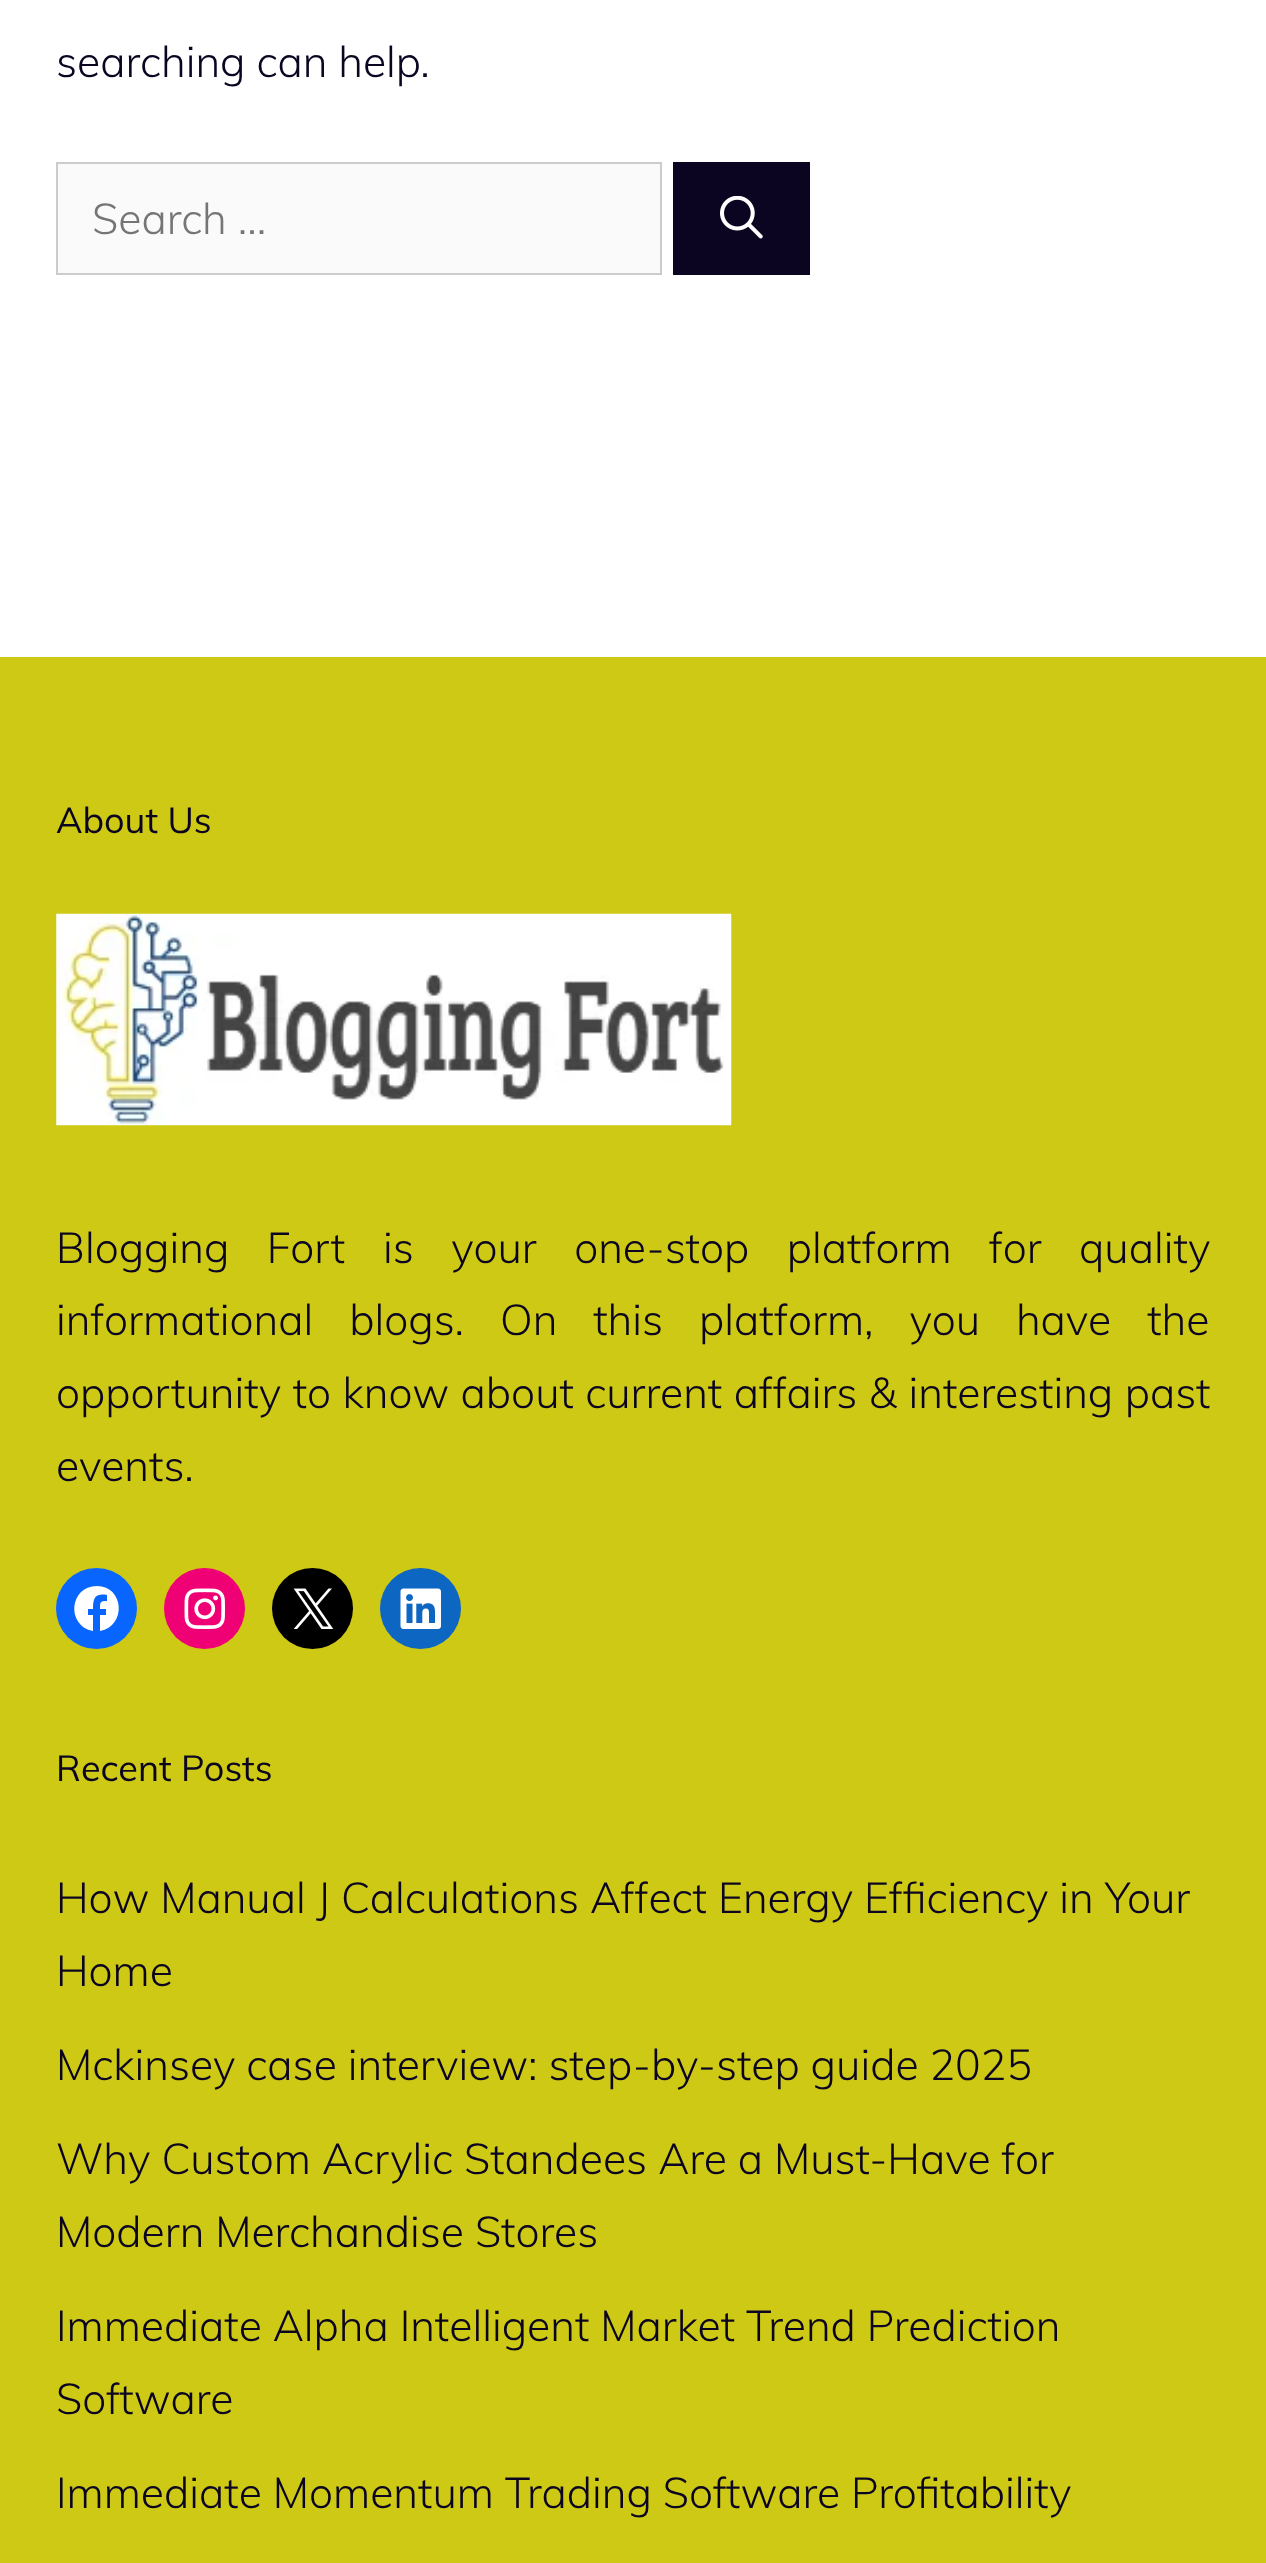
(async () => {
    const canvas = document.querySelector("canvas");
    canvas.width = 1266;
    canvas.height = 2563;
    const context = canvas.getContext("2d");
    context.miterLimit = 4;
    context.fontKerning = "normal";
    function write(s, x, y, font, color) {
        context.font = font;
        context.fillStyle = color;
        context.fillText(s, x, y);
    }
    function block(x, y, w, h, color) {
        context.fillStyle = color;
        context.fillRect(x, y, w, h);
    }
    async function photo(src, x, y, w, h) {
        const img = new Image();
        img.src = src;
        await img.decode();
        context.drawImage(img, x, y, w, h);
    }

    block(0, 0, 1266, 2563, "rgb(255, 255, 255)");
    write("searching can help.", 56, 77, "300 42.75px Muli", "rgb(11, 5, 33)");
    context.fillStyle = "rgb(250, 250, 250)";
    context.beginPath();
    context.rect(57, 163, 604, 111);
    context.fill();
    context.strokeStyle = "rgb(204, 204, 204)";
    context.lineWidth = 2;
    context.stroke();
    write("Search …", 92, 234, "300 42.75px Muli", "rgb(117, 117, 117)");
    block(673, 162, 137, 113, "rgb(11, 5, 33)");
    await photo("media/1.png", 720, 196, 43, 43);
    block(0, 657, 1266, 1906, "rgb(206, 201, 21)");
    write("About Us", 56, 833, "36px Muli", "rgb(11, 5, 33)");
    await photo("media/2.png", 56, 913, 676, 213);
    context.wordSpacing = "26.5px";
    write("Blogging Fort", 56, 1263, "300 42.75px Muli", "rgb(11, 5, 33)");
    write("is your one-stop platform for quality", 383, 1263, "300 42.75px Muli", "rgb(11, 5, 33)");
    context.wordSpacing = "25px";
    write("informational blogs. On this platform, you have the", 56, 1335, "300 42.75px Muli", "rgb(11, 5, 33)");
    context.wordSpacing = "0.5px";
    write("opportunity to know about current affairs & interesting past", 56, 1408, "300 42.75px Muli", "rgb(11, 5, 33)");
    context.wordSpacing = "0px";
    write("events.", 56, 1481, "300 42.75px Muli", "rgb(11, 5, 33)");
    context.fillStyle = "rgb(8, 102, 255)";
    context.beginPath();
    context.arc(96.5, 1608.5, 40.5, 0, Math.PI * 2);
    context.fill();
    context.fillStyle = "rgb(255, 255, 255)";
    context.beginPath();
    context.moveTo(97, 1586);
    context.bezierCurveTo(69, 1586, 66, 1626, 93, 1631);
    context.lineTo(93, 1615);
    context.lineTo(88, 1615);
    context.lineTo(88, 1609);
    context.lineTo(93, 1609);
    context.bezierCurveTo(93, 1598, 95, 1593, 107, 1595);
    context.lineTo(107, 1601);
    context.bezierCurveTo(100, 1601, 100, 1602, 100, 1609);
    context.lineTo(106, 1609);
    context.lineTo(106, 1615);
    context.lineTo(100, 1615);
    context.lineTo(100, 1631);
    context.bezierCurveTo(127, 1626, 124, 1586, 97, 1586);
    context.closePath();
    context.fill();
    context.fillStyle = "rgb(240, 0, 117)";
    context.beginPath();
    context.arc(204.5, 1608.5, 40.5, 0, Math.PI * 2);
    context.fill();
    await photo("media/3.png", 184, 1588, 41, 41);
    context.fillStyle = "rgb(0, 0, 0)";
    context.beginPath();
    context.arc(312.5, 1608.5, 40.5, 0, Math.PI * 2);
    context.fill();
    await photo("media/4.png", 293, 1588, 41, 41);
    context.fillStyle = "rgb(13, 102, 194)";
    context.beginPath();
    context.arc(420.5, 1608.5, 40.5, 0, Math.PI * 2);
    context.fill();
    await photo("media/5.png", 400, 1588, 41, 41);
    write("Recent Posts", 56, 1781, "36px Muli", "rgb(11, 5, 33)");
    write("How Manual J Calculations Affect Energy Efficiency in Your", 56, 1913, "300 42.75px Muli", "rgb(11, 5, 33)");
    write("Home", 56, 1986, "300 42.75px Muli", "rgb(11, 5, 33)");
    write("Mckinsey case interview: step-by-step guide 2025", 56, 2080, "300 42.75px Muli", "rgb(11, 5, 33)");
    write("Why Custom Acrylic Standees Are a Must-Have for", 56, 2174, "300 42.75px Muli", "rgb(11, 5, 33)");
    write("Modern Merchandise Stores", 56, 2247, "300 42.75px Muli", "rgb(11, 5, 33)");
    write("Immediate Alpha Intelligent Market Trend Prediction", 56, 2341, "300 42.75px Muli", "rgb(11, 5, 33)");
    write("Software", 56, 2414, "300 42.75px Muli", "rgb(11, 5, 33)");
    write("Immediate Momentum Trading Software Profitability", 56, 2508, "300 42.75px Muli", "rgb(11, 5, 33)");
})();
